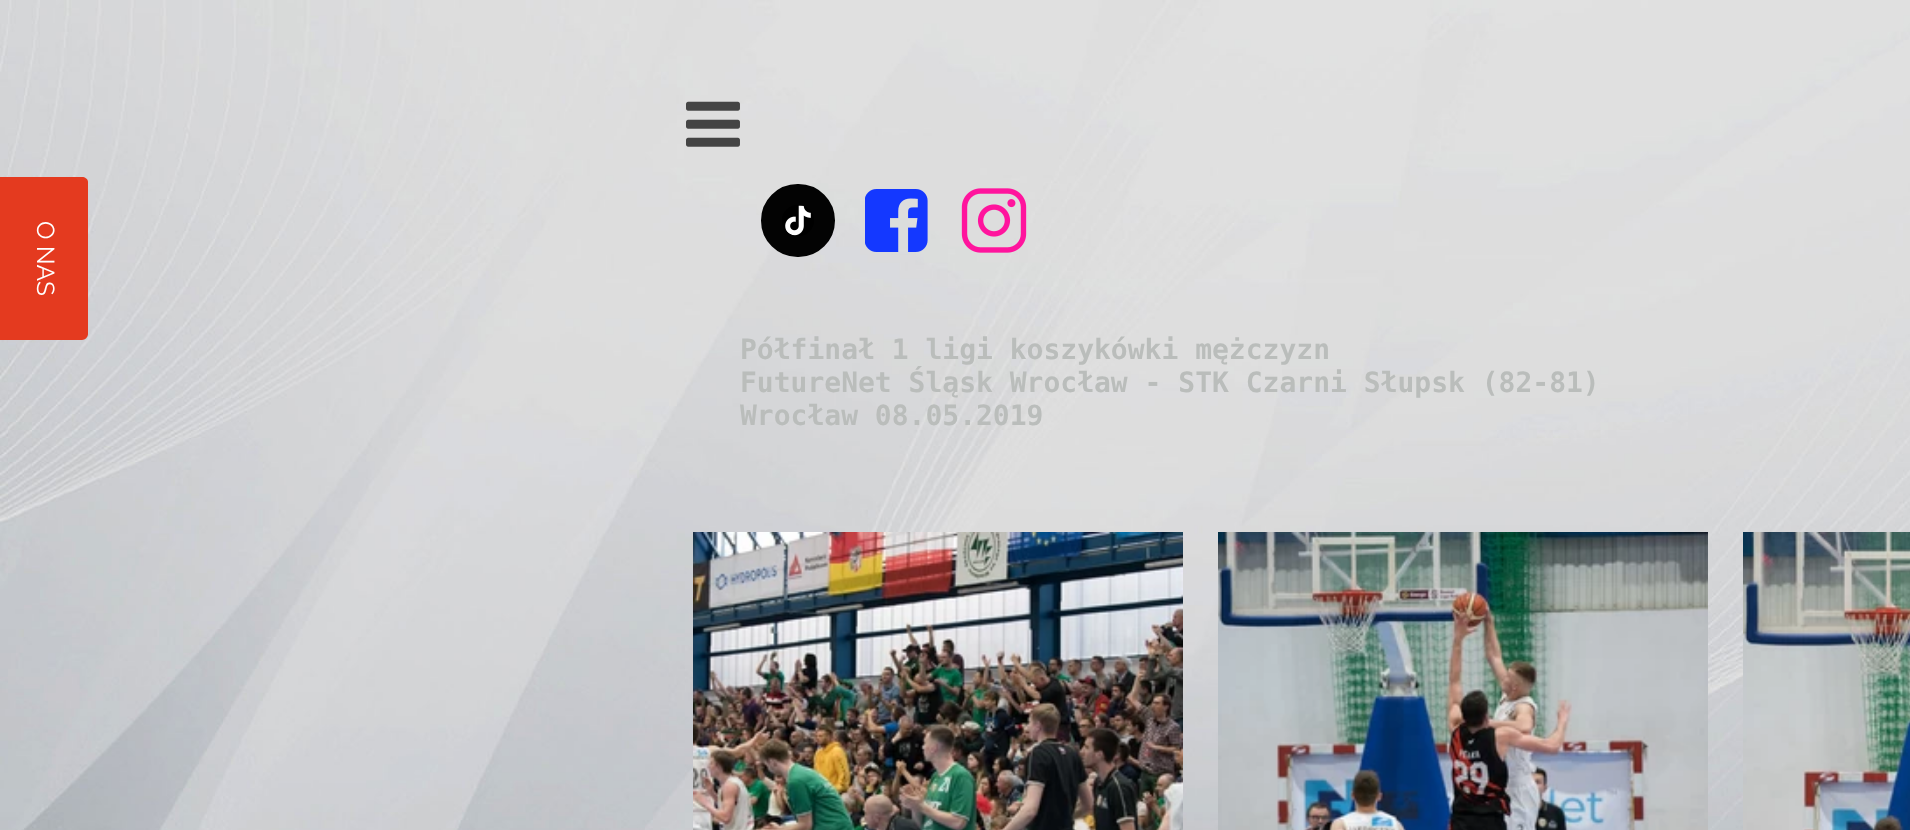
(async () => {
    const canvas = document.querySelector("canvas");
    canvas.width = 1910;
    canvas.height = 830;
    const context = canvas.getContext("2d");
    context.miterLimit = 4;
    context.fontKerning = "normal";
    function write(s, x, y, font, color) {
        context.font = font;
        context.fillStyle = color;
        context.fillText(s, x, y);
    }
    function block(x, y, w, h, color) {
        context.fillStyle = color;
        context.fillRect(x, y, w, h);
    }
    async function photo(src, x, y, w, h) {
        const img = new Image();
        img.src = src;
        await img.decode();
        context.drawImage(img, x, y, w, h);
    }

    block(0, 0, 1910, 830, "rgb(255, 255, 255)");
    await photo("media/1.png", 0, 0, 1910, 830);
    await photo("media/2.png", 686, 101, 54, 46);
    context.fillStyle = "rgb(228, 58, 31)";
    context.beginPath();
    context.moveTo(88, 182);
    context.lineTo(88, 334);
    context.bezierCurveTo(88, 337, 85, 340, 82, 340);
    context.lineTo(-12, 340);
    context.bezierCurveTo(-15, 340, -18, 337, -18, 334);
    context.lineTo(-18, 182);
    context.bezierCurveTo(-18, 179, -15, 177, -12, 177);
    context.lineTo(82, 177);
    context.bezierCurveTo(85, 177, 88, 179, 88, 182);
    context.closePath();
    context.fill();
    context.font = "24.5px Raleway";
    context.fillStyle = "rgb(255, 255, 255)";
    context.save();
    context.translate(37, 221);
    context.rotate(90 * Math.PI / 180);
    context.fillText("O NAS", 0, 0);
    context.restore();
    context.fillStyle = "rgb(0, 0, 0)";
    context.beginPath();
    context.roundRect(771.5, 194.5, 53, 52, 26);
    context.fill();
    context.strokeStyle = "rgb(3, 3, 3)";
    context.lineWidth = 21;
    context.stroke();
    await photo("media/3.png", 785, 205, 26, 31);
    await photo("media/4.png", 865, 189, 63, 63);
    await photo("media/5.png", 961, 188, 66, 65);
    write("Półfinał 1 ligi koszykówki mężczyzn", 740, 359, "bold 28px DejaVu Sans Mono", "rgb(186, 189, 187)");
    write("FutureNet Śląsk Wrocław - STK Czarni Słupsk (82-81)", 740, 392, "bold 28px DejaVu Sans Mono", "rgb(186, 189, 187)");
    write("Wrocław 08.05.2019", 740, 425, "bold 28px DejaVu Sans Mono", "rgb(186, 189, 187)");
    await photo("media/6.png", 693, 532, 490, 298);
    await photo("media/7.png", 1218, 532, 490, 298);
    await photo("media/8.png", 1743, 532, 167, 298);
})();
